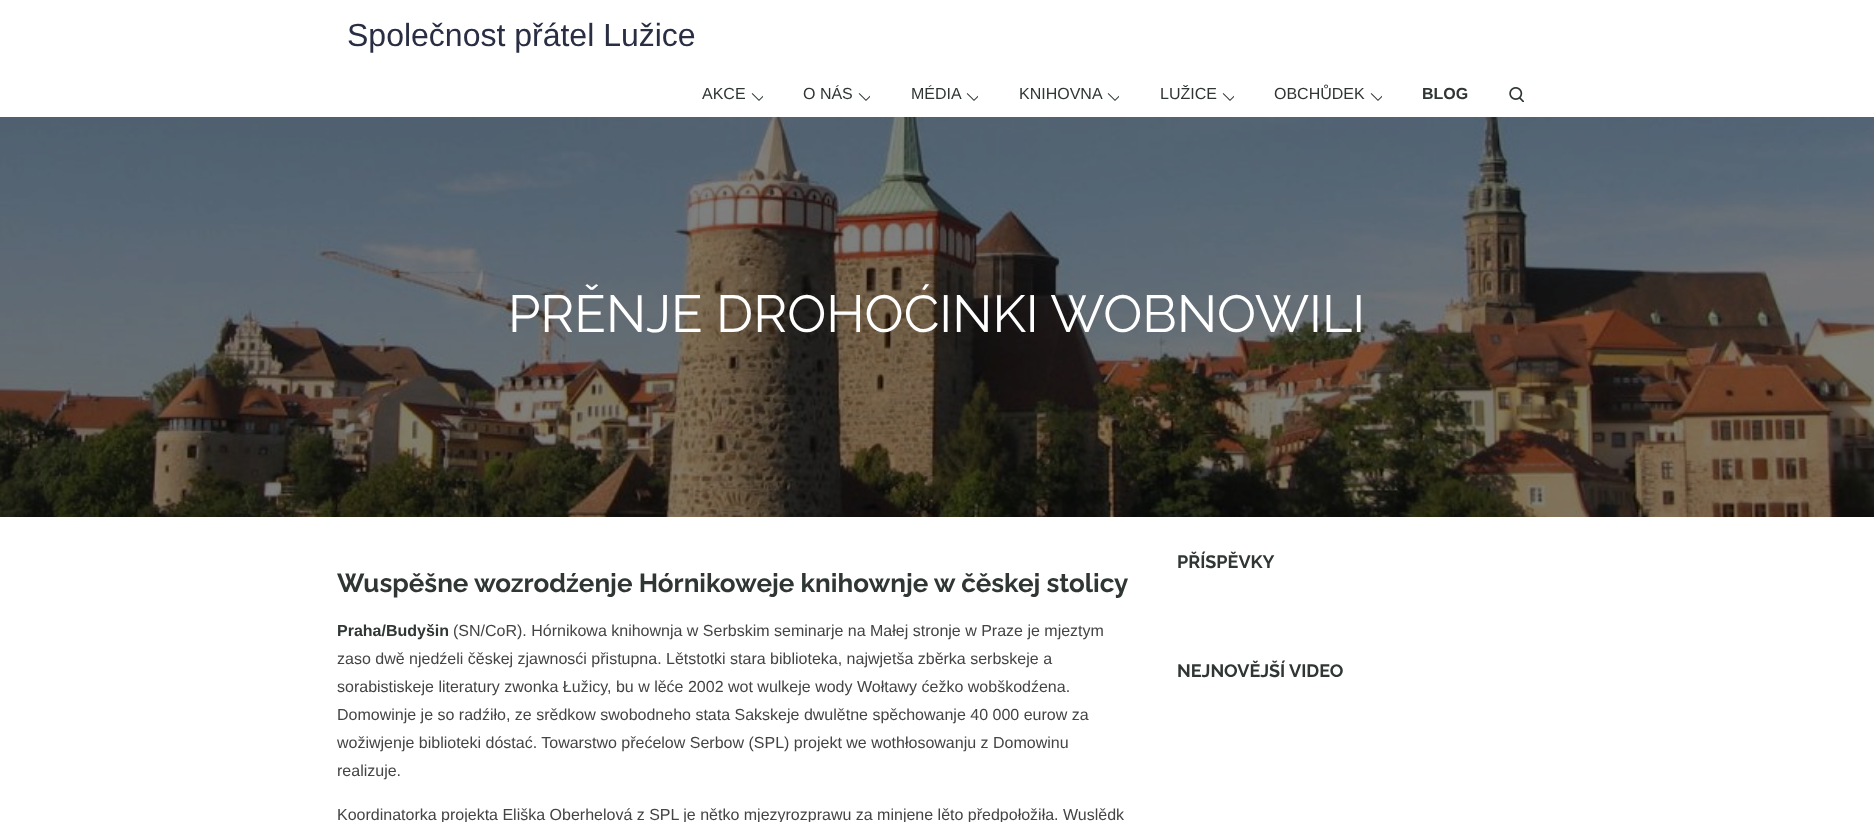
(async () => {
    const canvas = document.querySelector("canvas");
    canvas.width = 1874;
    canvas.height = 822;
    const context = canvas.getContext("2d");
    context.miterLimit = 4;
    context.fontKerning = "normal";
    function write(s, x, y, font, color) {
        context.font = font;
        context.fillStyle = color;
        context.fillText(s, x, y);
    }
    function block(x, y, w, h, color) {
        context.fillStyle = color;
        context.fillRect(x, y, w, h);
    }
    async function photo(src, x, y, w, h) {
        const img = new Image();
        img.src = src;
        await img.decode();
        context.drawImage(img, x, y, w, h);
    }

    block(0, 0, 1874, 822, "rgb(255, 255, 255)");
    write("Společnost přátel Lužice", 347, 46, "32px Liberation Sans", "rgb(42, 46, 67)");
    write("AKCE", 702, 99, "16px Liberation Sans", "rgb(47, 54, 51)");
    await photo("media/1.png", 751, 93, 12, 8);
    write("O NÁS", 803, 99, "16px Liberation Sans", "rgb(47, 54, 51)");
    await photo("media/1.png", 858, 93, 12, 8);
    write("MÉDIA", 911, 99, "16px Liberation Sans", "rgb(47, 54, 51)");
    await photo("media/1.png", 966, 93, 12, 8);
    write("KNIHOVNA", 1019, 99, "16px Liberation Sans", "rgb(47, 54, 51)");
    await photo("media/1.png", 1107, 93, 12, 8);
    write("LUŽICE", 1160, 99, "16px Liberation Sans", "rgb(47, 54, 51)");
    await photo("media/1.png", 1222, 93, 12, 8);
    write("OBCHŮDEK", 1274, 99, "16px Liberation Sans", "rgb(47, 54, 51)");
    await photo("media/1.png", 1370, 93, 12, 8);
    write("BLOG", 1422, 99, "bold 16px Liberation Sans", "rgb(47, 54, 51)");
    await photo("media/2.png", 1509, 87, 15, 15);
    await photo("media/3.png", 0, 117, 1874, 400);
    write("PRĚNJE DROHOĆINKI WOBNOWILI", 508, 332, "52px Raleway", "rgb(255, 255, 255)");
    write("Wuspěšne wozrodźenje Hórnikoweje knihownje w čěskej stolicy", 337, 592, "bold 26px Raleway", "rgb(47, 54, 51)");
    write("Praha/Budyšin", 337, 636, "bold 16px Liberation Sans", "rgb(47, 54, 51)");
    write("(SN/CoR). Hórnikowa knihownja w Serbskim seminarje na Małej stronje w Praze je mjeztym", 453, 636, "16px Liberation Sans", "rgb(68, 68, 68)");
    write("zaso dwě njedźeli čěskej zjawnosći přistupna. Lětstotki stara biblioteka, najwjetša zběrka serbskeje a", 337, 664, "16px Liberation Sans", "rgb(68, 68, 68)");
    write("sorabistiskeje literatury zwonka Łužicy, bu w lěće 2002 wot wulkeje wody Wołtawy ćežko wobškodźena.", 337, 692, "16px Liberation Sans", "rgb(68, 68, 68)");
    write("Domowinje je so radźiło, ze srědkow swobodneho stata Sakskeje dwulětne spěchowanje 40 000 eurow za", 337, 720, "16px Liberation Sans", "rgb(68, 68, 68)");
    write("wožiwjenje biblioteki dóstać. Towarstwo přećelow Serbow (SPL) projekt we wothłosowanju z Domowinu", 337, 748, "16px Liberation Sans", "rgb(68, 68, 68)");
    write("realizuje.", 337, 776, "16px Liberation Sans", "rgb(68, 68, 68)");
    write("Koordinatorka projekta Eliška Oberhelová z SPL je nětko mjezyrozprawu za minjene lěto předpołožiła. Wuslědk", 337, 820, "16px Liberation Sans", "rgb(68, 68, 68)");
    write("PŘÍSPĚVKY", 1177, 568, "bold 18px Raleway", "rgb(47, 54, 51)");
    write("NEJNOVĚJŠÍ VIDEO", 1177, 677, "bold 18px Raleway", "rgb(47, 54, 51)");
})();
